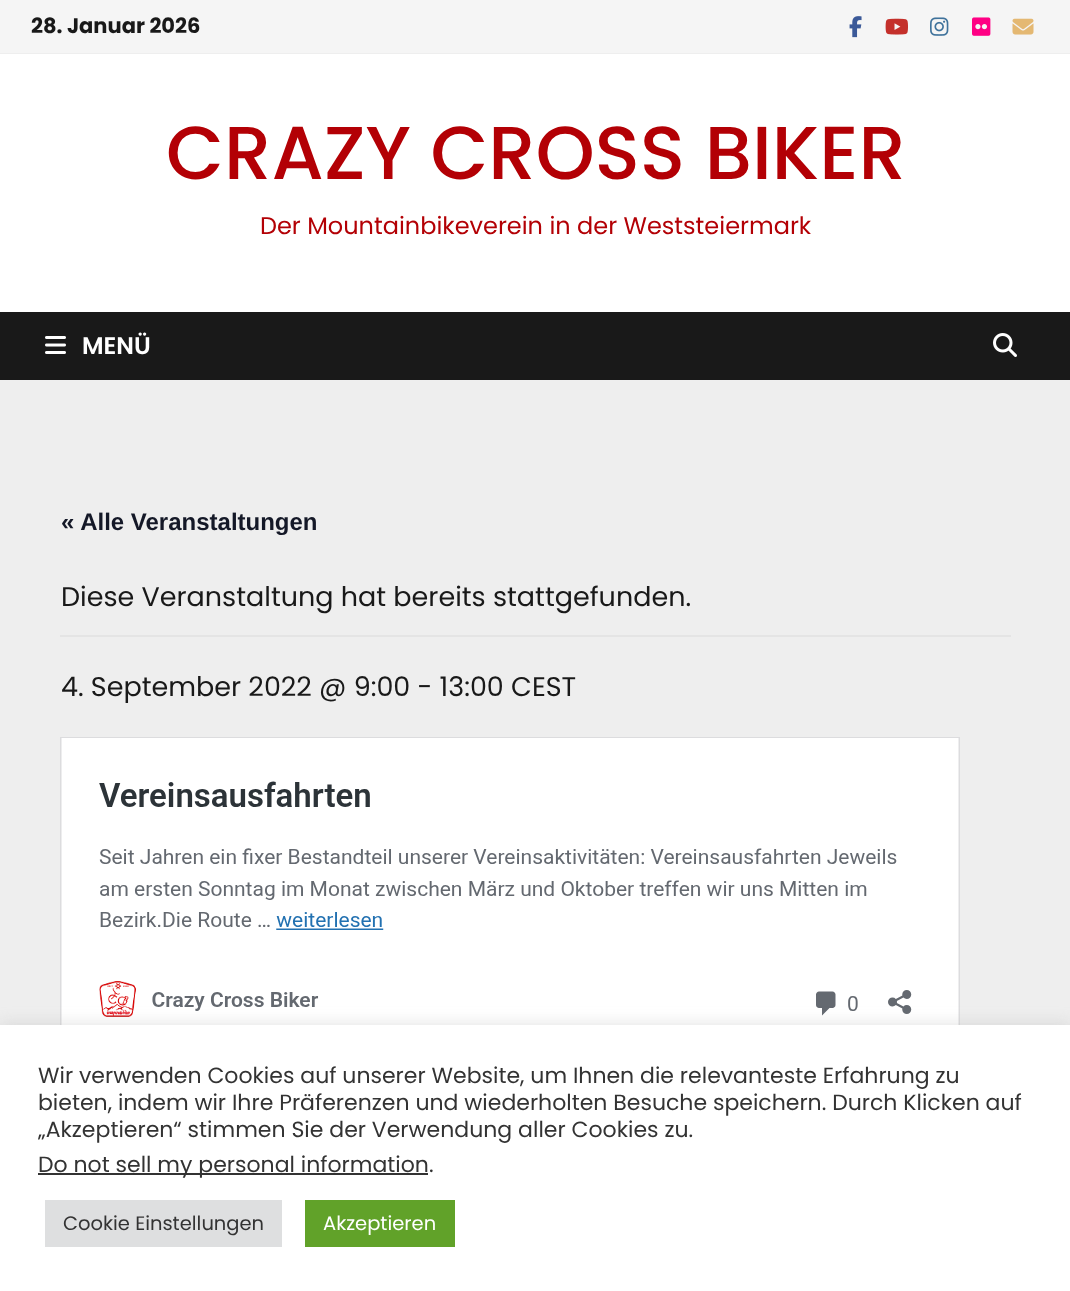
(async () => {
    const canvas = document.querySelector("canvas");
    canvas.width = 1070;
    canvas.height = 1291;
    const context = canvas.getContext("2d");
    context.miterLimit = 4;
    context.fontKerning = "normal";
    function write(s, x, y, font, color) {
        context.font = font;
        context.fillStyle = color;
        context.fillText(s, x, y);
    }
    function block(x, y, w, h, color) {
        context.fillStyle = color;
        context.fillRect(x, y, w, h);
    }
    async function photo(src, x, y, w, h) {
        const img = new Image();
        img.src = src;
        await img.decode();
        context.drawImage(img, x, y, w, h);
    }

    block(0, 0, 1070, 1291, "rgb(245, 245, 245)");
    block(0, 53, 1070, 1, "rgb(238, 238, 238)");
    write("28. Januar 2026", 31, 33, "bold 21px Poppins", "rgb(25, 25, 25)");
    await photo("media/1.png", 849, 16, 13, 22);
    await photo("media/2.png", 885, 18, 23, 17);
    await photo("media/3.png", 930, 17, 19, 19);
    await photo("media/4.png", 972, 17, 19, 19);
    await photo("media/5.png", 1012, 18, 22, 17);
    block(0, 54, 1070, 258, "rgb(255, 255, 255)");
    write("CRAZY CROSS BIKER", 166, 179, "500 75px Poppins", "rgb(179, 0, 5)");
    write("Der Mountainbikeverein in der Weststeiermark", 260, 234, "24px Poppins", "rgb(179, 0, 5)");
    block(0, 312, 1070, 68, "rgb(25, 25, 25)");
    await photo("media/6.png", 45, 336, 21, 18);
    write("MENÜ", 82, 354, "600 24px Poppins", "rgb(255, 255, 255)");
    await photo("media/7.png", 993, 333, 24, 24);
    block(0, 380, 1070, 645, "rgb(238, 238, 238)");
    write("« Alle Veranstaltungen", 61, 530, "bold 24px Liberation Sans", "rgb(20, 24, 39)");
    block(60, 635, 951, 2, "rgb(228, 228, 228)");
    write("Diese Veranstaltung hat bereits stattgefunden.", 61, 606, "27px Poppins", "rgb(25, 25, 25)");
    write("4. September 2022 @ 9:00 - 13:00 CEST", 61, 696, "27px Poppins", "rgb(25, 25, 25)");
    await photo("media/8.png", 60, 737, 900, 288);
    context.fillStyle = "rgba(172, 171, 171, 0.3)";
    context.filter = "blur(7.5px)";
    context.beginPath();
    context.rect(0, 1023, 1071, 267);
    context.fill();
    context.filter = "none";
    block(0, 1025, 1070, 266, "rgb(255, 255, 255)");
    write("Wir verwenden Cookies auf unserer Website, um Ihnen die relevanteste Erfahrung zu", 38, 1083, "22px Poppins", "rgb(51, 51, 51)");
    write("bieten, indem wir Ihre Präferenzen und wiederholten Besuche speichern. Durch Klicken auf", 38, 1110, "22px Poppins", "rgb(51, 51, 51)");
    write("„Akzeptieren“ stimmen Sie der Verwendung aller Cookies zu.", 38, 1137, "22px Poppins", "rgb(51, 51, 51)");
    block(38, 1173, 390, 2, "rgb(51, 51, 51)");
    write("Do not sell my personal information.", 38, 1172, "22px Poppins", "rgb(51, 51, 51)");
    block(45, 1200, 237, 47, "rgb(222, 223, 224)");
    write("Cookie Einstellungen", 63, 1230, "19.5px Poppins", "rgb(51, 51, 51)");
    block(305, 1200, 150, 47, "rgb(97, 162, 41)");
    write("Akzeptieren", 323, 1230, "19.5px Poppins", "rgb(255, 255, 255)");
})();
